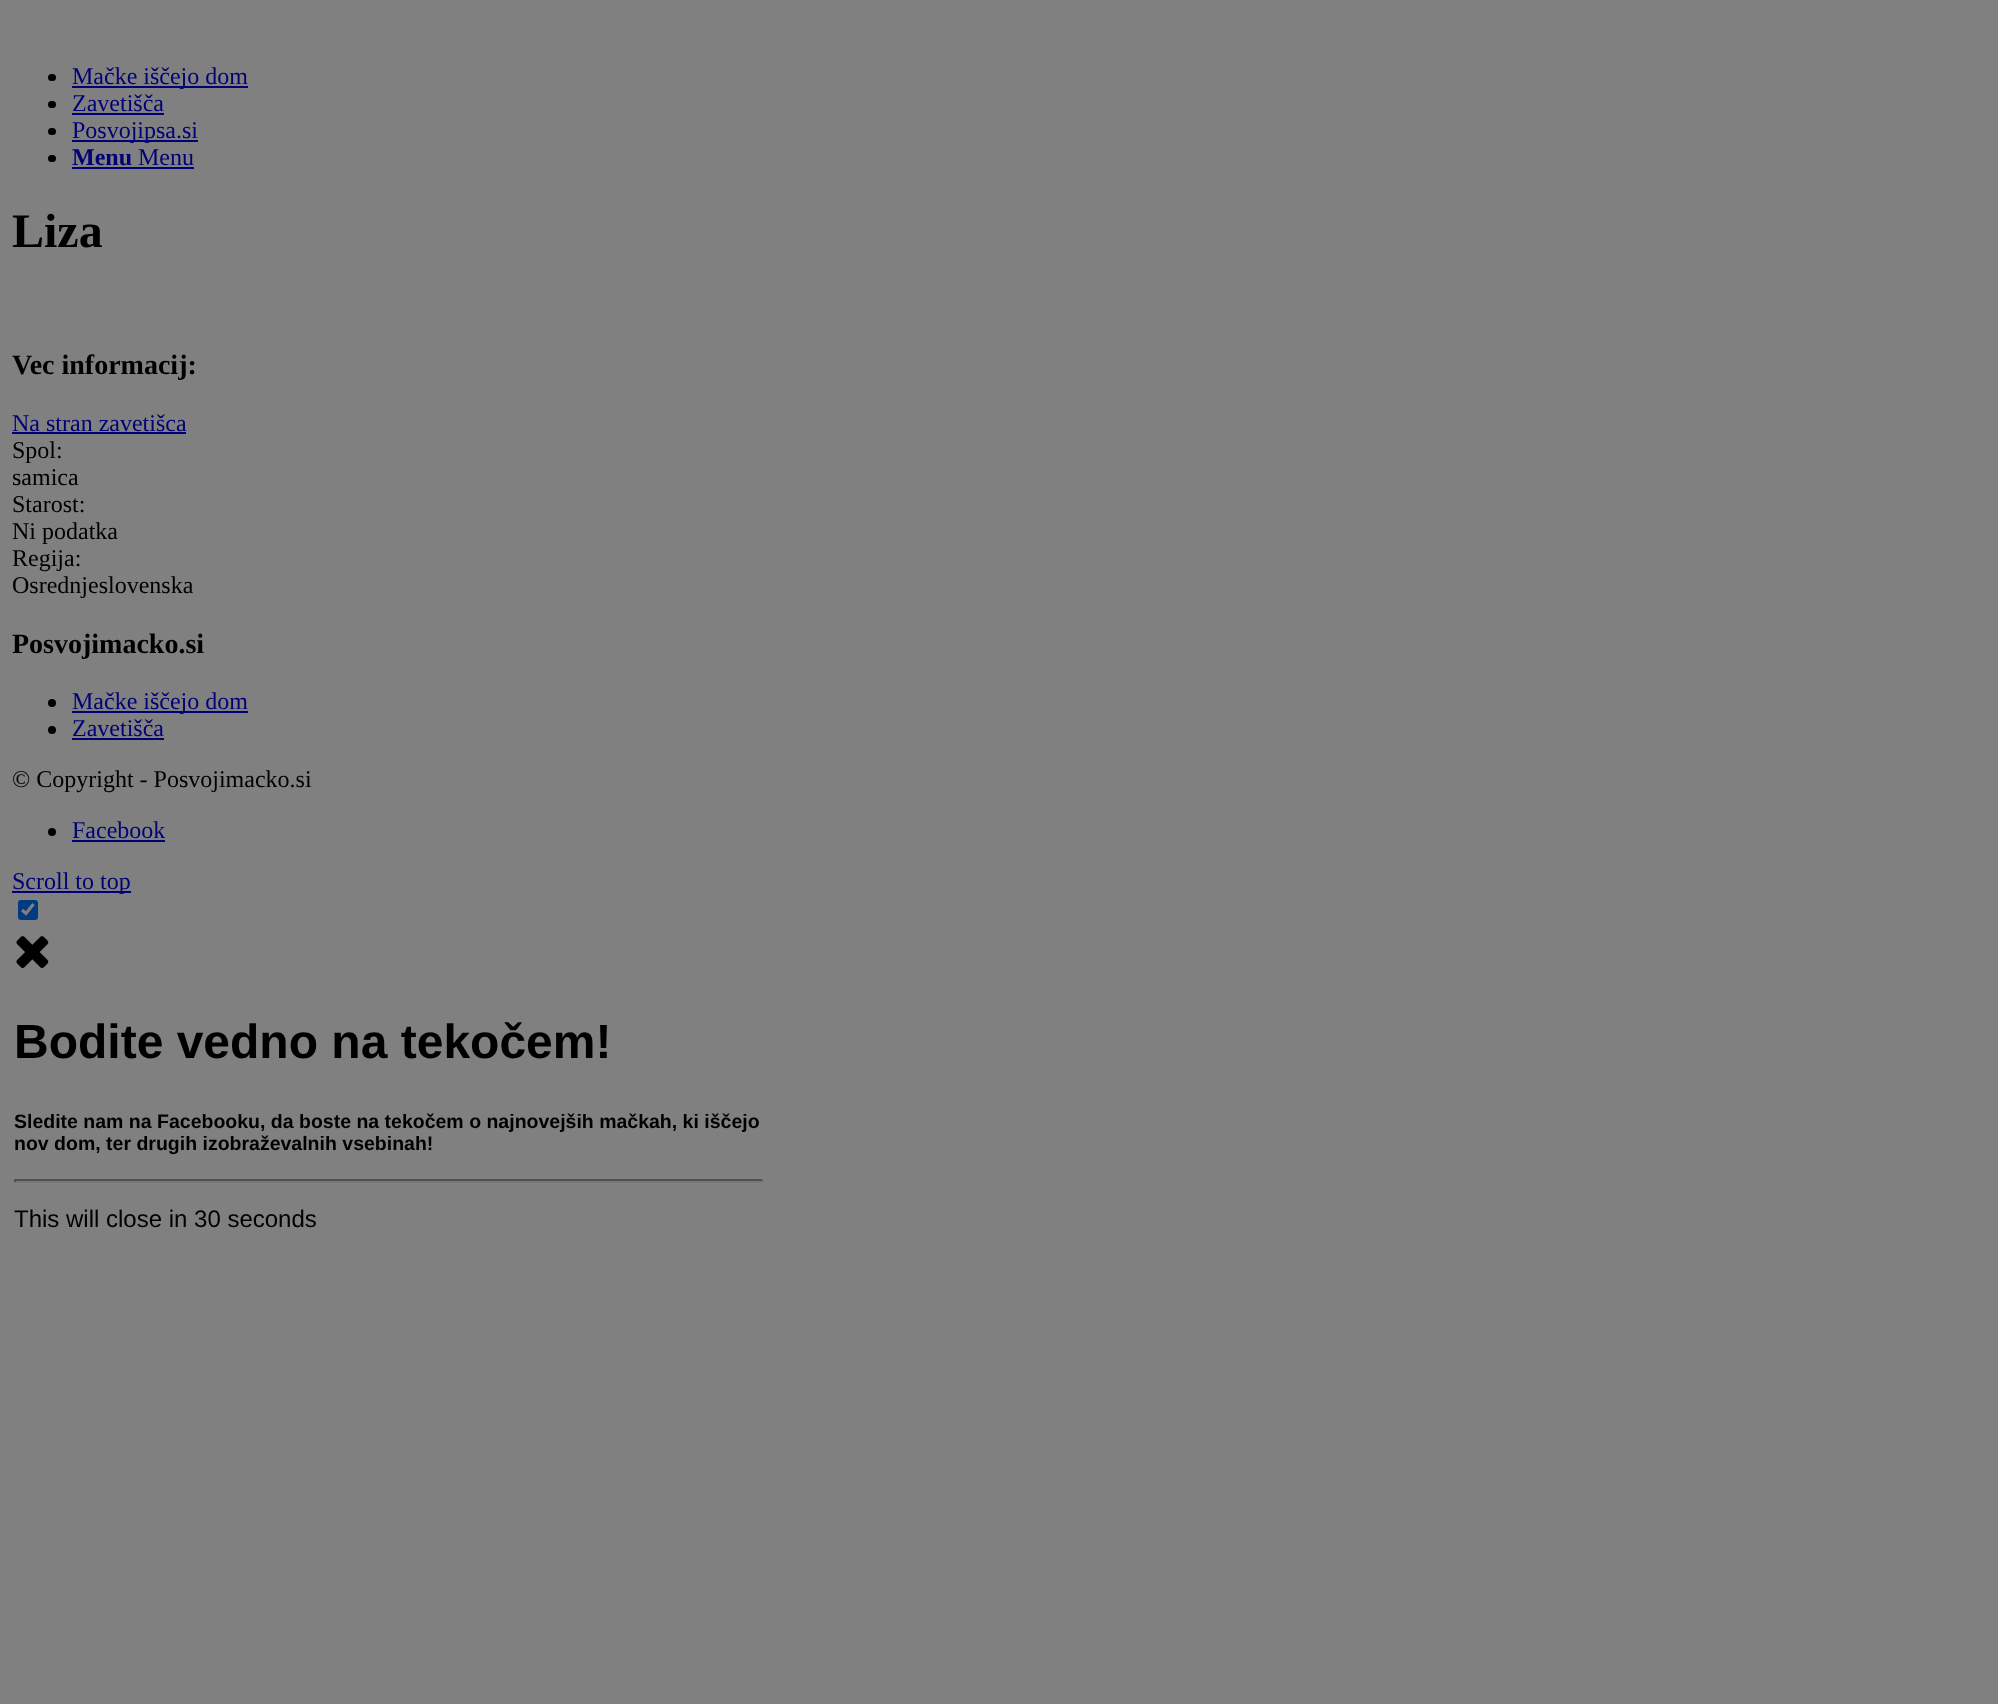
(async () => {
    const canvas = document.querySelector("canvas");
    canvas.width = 1998;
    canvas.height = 1704;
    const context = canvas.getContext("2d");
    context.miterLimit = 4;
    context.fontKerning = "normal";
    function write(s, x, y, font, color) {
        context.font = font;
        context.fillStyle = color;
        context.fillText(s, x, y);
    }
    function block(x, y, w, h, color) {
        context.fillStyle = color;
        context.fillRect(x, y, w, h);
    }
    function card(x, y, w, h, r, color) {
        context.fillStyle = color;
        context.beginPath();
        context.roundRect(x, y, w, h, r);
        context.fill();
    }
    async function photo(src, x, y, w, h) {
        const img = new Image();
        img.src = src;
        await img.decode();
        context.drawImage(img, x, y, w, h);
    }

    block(0, 0, 1998, 1704, "rgb(128, 128, 128)");
    card(48, 74, 8, 7, 3.5, "rgb(0, 0, 0)");
    block(72, 86, 176, 2, "rgb(0, 0, 119)");
    write("Mačke iščejo dom", 72, 84, "24px Liberation Serif", "rgb(0, 0, 119)");
    card(48, 101, 8, 7, 3.5, "rgb(0, 0, 0)");
    write("Zavetišča", 72, 111, "24px Liberation Serif", "rgb(0, 0, 119)");
    block(72, 113, 92, 2, "rgb(0, 0, 119)");
    card(48, 128, 8, 7, 3.5, "rgb(0, 0, 0)");
    block(72, 140, 126, 2, "rgb(0, 0, 119)");
    write("Posvojipsa.si", 72, 138, "24px Liberation Serif", "rgb(0, 0, 119)");
    card(48, 155, 8, 7, 3.5, "rgb(0, 0, 0)");
    write("Menu", 72, 165, "bold 24px Liberation Serif", "rgb(0, 0, 119)");
    block(72, 167, 122, 2, "rgb(0, 0, 119)");
    write("Menu", 138, 165, "24px Liberation Serif", "rgb(0, 0, 119)");
    write("Liza", 12, 247, "bold 48px Liberation Serif", "rgb(0, 0, 0)");
    write("Vec informacij:", 12, 374, "bold 28px Liberation Serif", "rgb(0, 0, 0)");
    write("Na stran zavetišca", 12, 431, "24px Liberation Serif", "rgb(0, 0, 119)");
    block(12, 432, 174, 2, "rgb(0, 0, 119)");
    write("Spol:", 12, 458, "24px Liberation Serif", "rgb(0, 0, 0)");
    write("samica", 12, 485, "24px Liberation Serif", "rgb(0, 0, 0)");
    write("Starost:", 12, 512, "24px Liberation Serif", "rgb(0, 0, 0)");
    write("Ni podatka", 12, 539, "24px Liberation Serif", "rgb(0, 0, 0)");
    write("Regija:", 12, 566, "24px Liberation Serif", "rgb(0, 0, 0)");
    write("Osrednjeslovenska", 12, 593, "24px Liberation Serif", "rgb(0, 0, 0)");
    write("Posvojimacko.si", 12, 653, "bold 28px Liberation Serif", "rgb(0, 0, 0)");
    context.beginPath();
    context.arc(52, 703, 4, 0, Math.PI * 2);
    context.fill();
    block(72, 711, 176, 2, "rgb(0, 0, 119)");
    write("Mačke iščejo dom", 72, 709, "24px Liberation Serif", "rgb(0, 0, 119)");
    context.fillStyle = "rgb(0, 0, 0)";
    context.beginPath();
    context.arc(52, 730, 4, 0, Math.PI * 2);
    context.fill();
    write("Zavetišča", 72, 736, "24px Liberation Serif", "rgb(0, 0, 119)");
    block(72, 738, 92, 2, "rgb(0, 0, 119)");
    write("© Copyright - Posvojimacko.si", 12, 787, "24px Liberation Serif", "rgb(0, 0, 0)");
    context.beginPath();
    context.arc(52, 832, 4, 0, Math.PI * 2);
    context.fill();
    write("Facebook", 72, 838, "24px Liberation Serif", "rgb(0, 0, 119)");
    block(72, 840, 93, 2, "rgb(0, 0, 119)");
    block(12, 891, 119, 2, "rgb(0, 0, 119)");
    write("Scroll to top", 12, 889, "24px Liberation Serif", "rgb(0, 0, 119)");
    card(18, 900, 20, 20, 3, "rgb(0, 59, 128)");
    context.beginPath();
    context.moveTo(22, 910);
    context.lineTo(26, 913.5);
    context.lineTo(33.5, 904);
    context.strokeStyle = "rgb(128, 128, 128)";
    context.lineWidth = 3.1;
    context.stroke();
    await photo("media/1.png", 16, 936, 33, 32);
    write("Bodite vedno na tekočem!", 14, 1058, "bold 48px Liberation Sans", "rgb(0, 0, 0)");
    write("Sledite nam na Facebooku, da boste na tekočem o najnovejših mačkah, ki iščejo", 14, 1128, "bold 19.5px Liberation Sans", "rgb(0, 0, 0)");
    write("nov dom, ter drugih izobraževalnih vsebinah!", 14, 1150, "bold 19.5px Liberation Sans", "rgb(0, 0, 0)");
    block(14, 1179, 750, 2, "rgb(80, 80, 80)");
    block(762, 1179, 2, 3, "rgb(119, 119, 119)");
    block(14, 1181, 750, 2, "rgb(119, 119, 119)");
    block(14, 1179, 2, 3, "rgb(80, 80, 80)");
    write("This will close in 30 seconds", 14, 1227, "24px Liberation Sans", "rgb(0, 0, 0)");
})();
